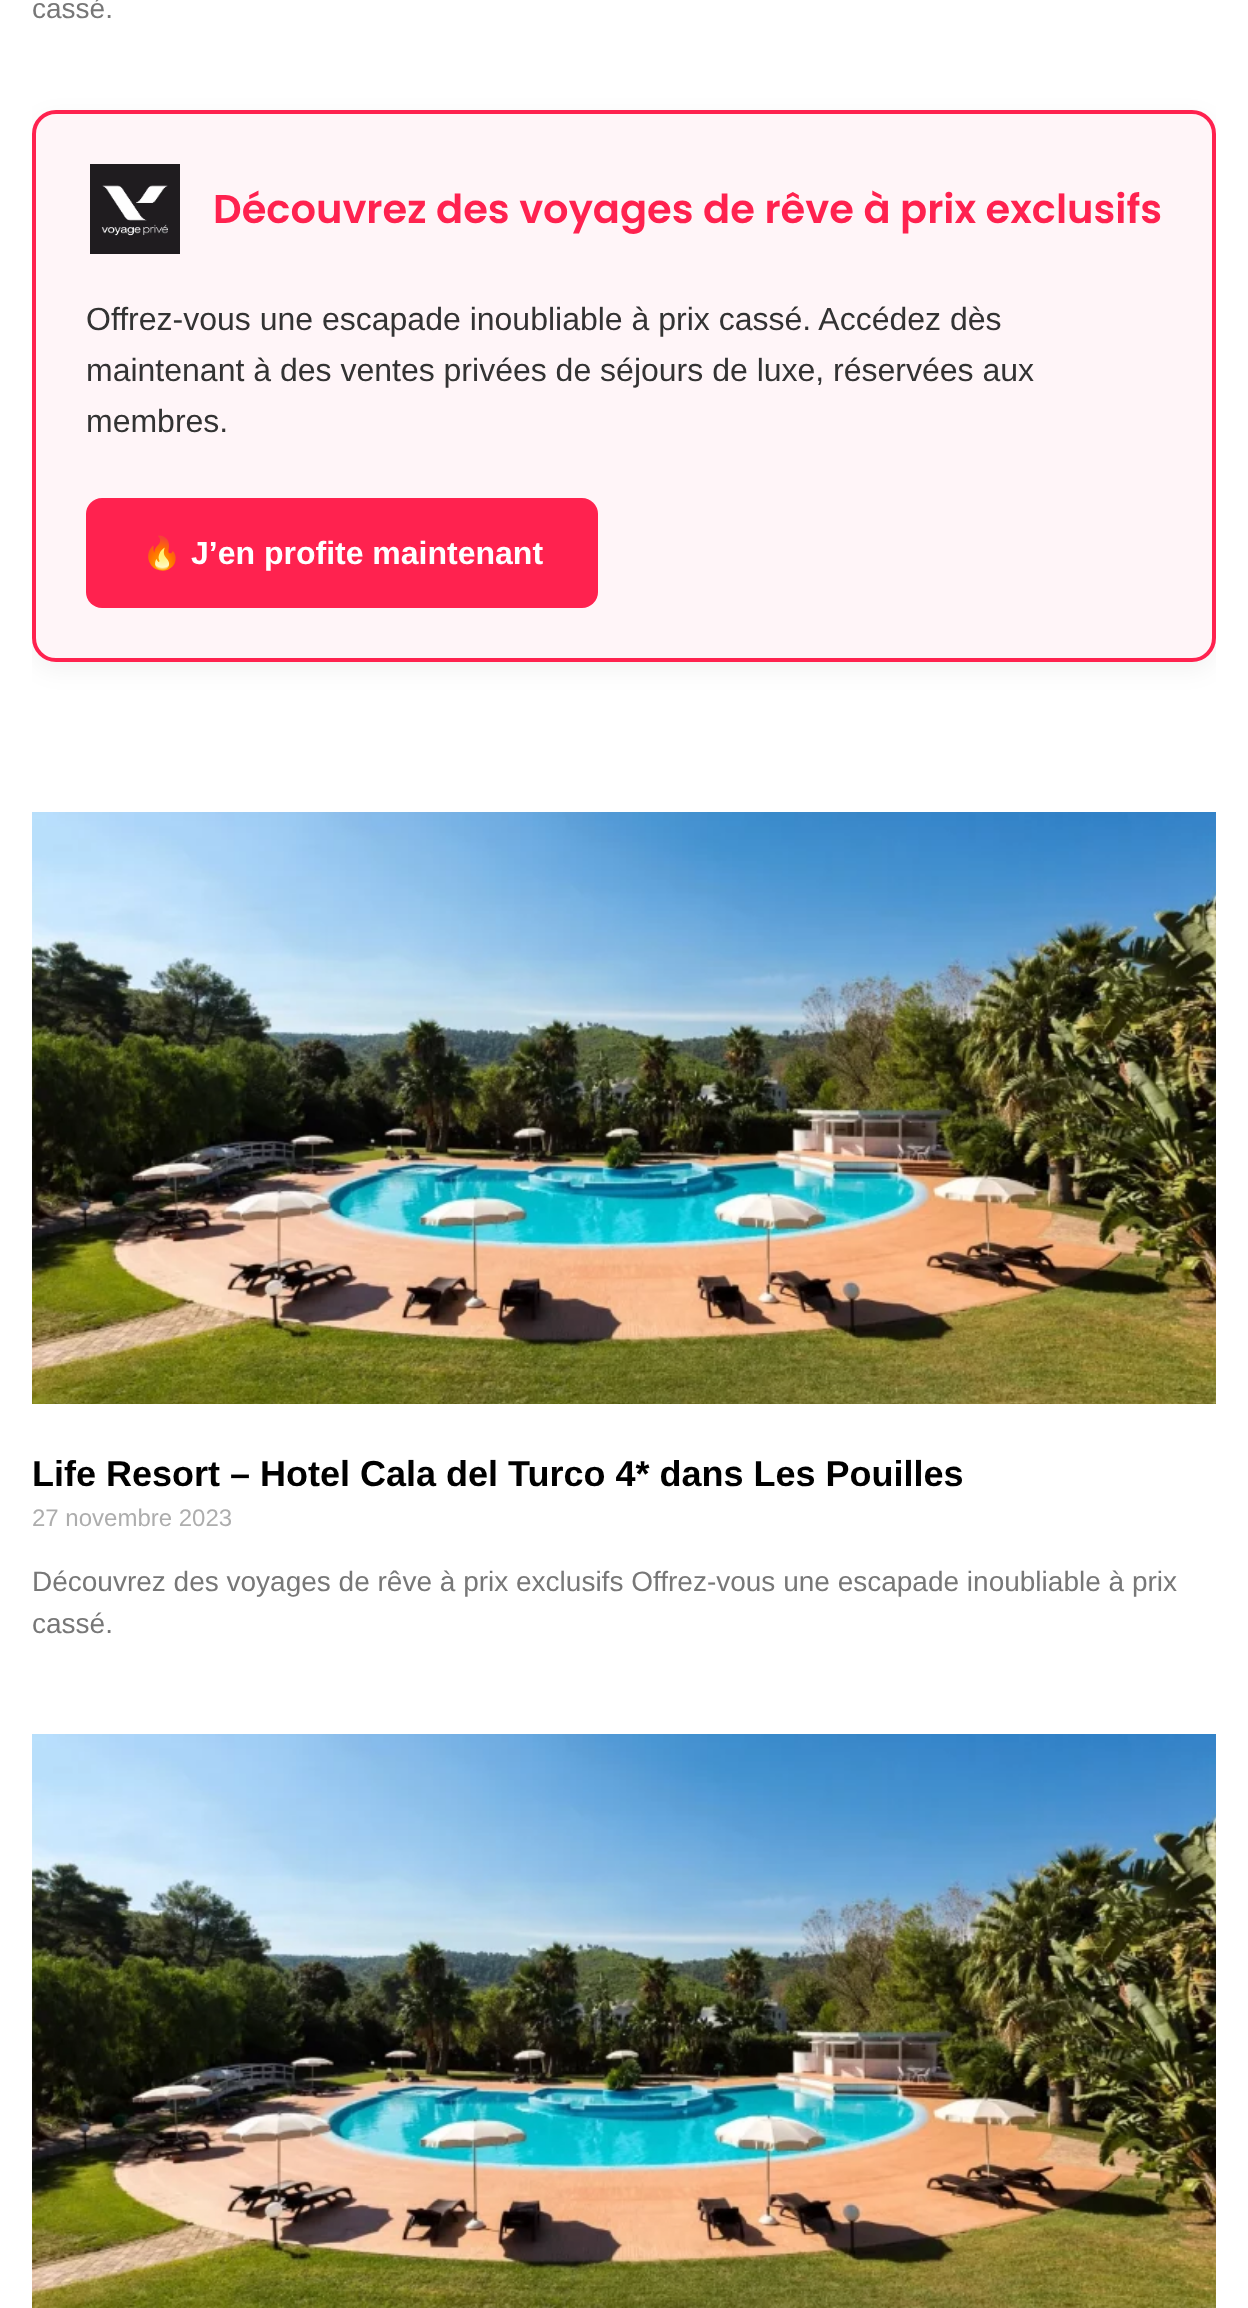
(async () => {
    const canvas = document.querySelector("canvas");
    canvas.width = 1248;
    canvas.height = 2308;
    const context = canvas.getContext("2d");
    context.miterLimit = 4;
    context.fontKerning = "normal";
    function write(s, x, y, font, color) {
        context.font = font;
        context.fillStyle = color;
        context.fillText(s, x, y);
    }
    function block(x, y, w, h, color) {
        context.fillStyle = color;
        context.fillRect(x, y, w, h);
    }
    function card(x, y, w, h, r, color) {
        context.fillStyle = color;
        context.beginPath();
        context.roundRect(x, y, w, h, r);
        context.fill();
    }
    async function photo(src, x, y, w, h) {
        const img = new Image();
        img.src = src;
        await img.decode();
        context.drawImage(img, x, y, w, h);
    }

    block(0, 0, 1248, 2308, "rgb(255, 255, 255)");
    write("cassé.", 32, 18, "28px Liberation Sans", "rgb(119, 119, 119)");
    context.save();
    context.beginPath();
    context.rect(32, 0, 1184, 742);
    context.clip();
    context.fillStyle = "rgba(0, 0, 0, 0.05)";
    context.filter = "blur(12px)";
    context.beginPath();
    context.roundRect(32, 118, 1184, 552, 24);
    context.fill();
    context.filter = "none";
    context.restore();
    context.fillStyle = "rgb(255, 245, 248)";
    context.beginPath();
    context.roundRect(34, 112, 1180, 548, 22);
    context.fill();
    context.strokeStyle = "rgb(255, 34, 79)";
    context.lineWidth = 4;
    context.stroke();
    await photo("media/1.png", 90, 164, 90, 90);
    write("Découvrez des voyages de rêve à prix exclusifs", 213, 223, "600 40px Poppins", "rgb(255, 34, 79)");
    write("Offrez-vous une escapade inoubliable à prix cassé. Accédez dès", 86, 330, "32px Liberation Sans", "rgb(51, 51, 51)");
    write("maintenant à des ventes privées de séjours de luxe, réservées aux", 86, 381, "32px Liberation Sans", "rgb(51, 51, 51)");
    write("membres.", 86, 432, "32px Liberation Sans", "rgb(51, 51, 51)");
    card(86, 498, 512, 110, 16, "rgb(255, 34, 79)");
    write("🔥", 142, 564, "bold 32px Noto Color Emoji", "rgb(255, 255, 255)");
    write("J’en profite maintenant", 191, 564, "bold 32px Liberation Sans", "rgb(255, 255, 255)");
    await photo("media/2.png", 32, 812, 1184, 592);
    write("Life Resort – Hotel Cala del Turco 4* dans Les Pouilles", 32, 1486, "bold 36px Liberation Sans", "rgb(0, 0, 0)");
    write("27 novembre 2023", 32, 1526, "24px Liberation Sans", "rgb(173, 173, 173)");
    write("Découvrez des voyages de rêve à prix exclusifs Offrez-vous une escapade inoubliable à prix", 32, 1591, "28px Liberation Sans", "rgb(119, 119, 119)");
    write("cassé.", 32, 1633, "28px Liberation Sans", "rgb(119, 119, 119)");
    await photo("media/3.png", 32, 1734, 1184, 574);
})();
